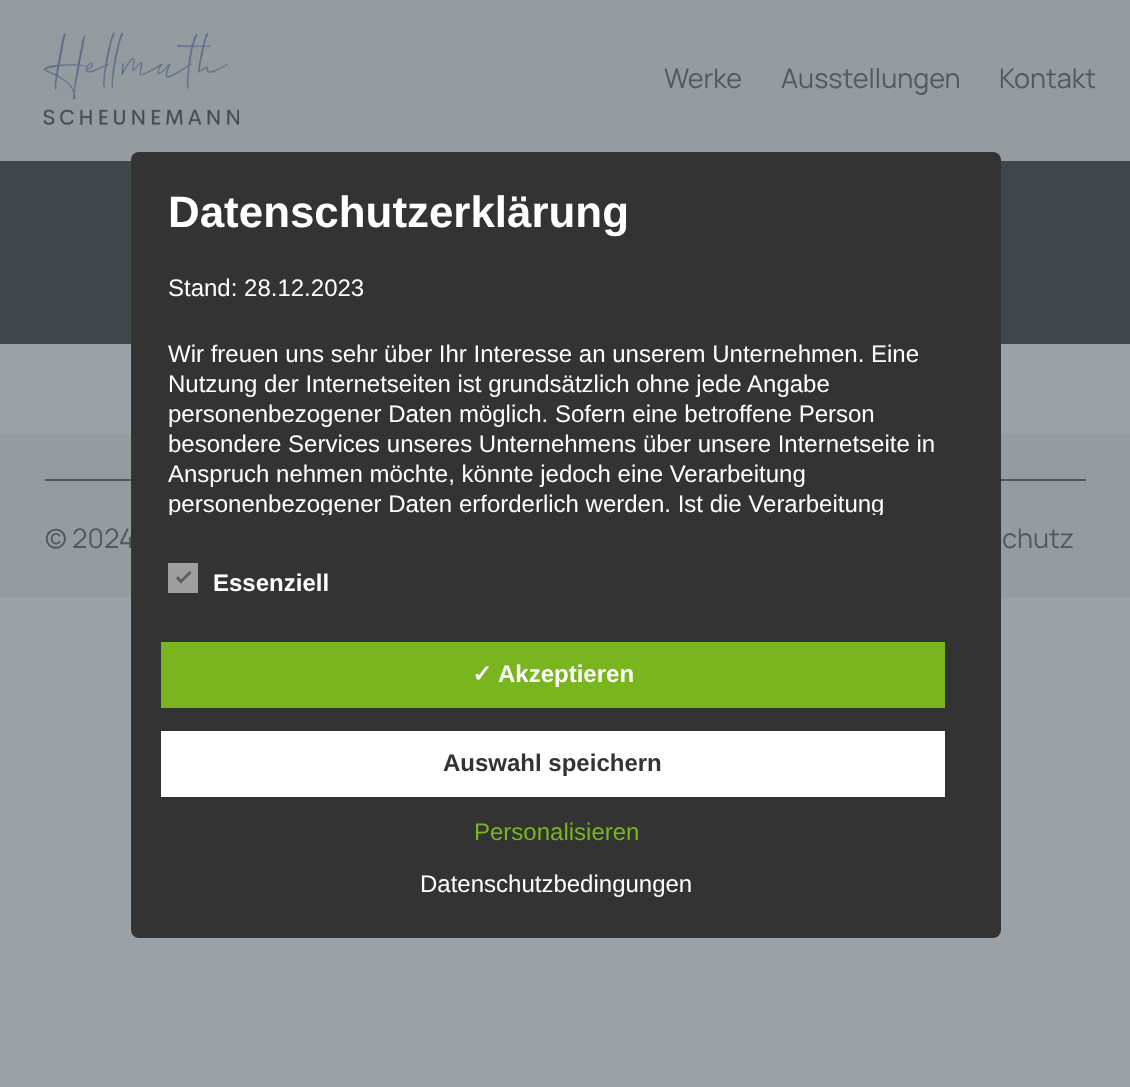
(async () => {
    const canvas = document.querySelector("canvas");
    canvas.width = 1130;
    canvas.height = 1087;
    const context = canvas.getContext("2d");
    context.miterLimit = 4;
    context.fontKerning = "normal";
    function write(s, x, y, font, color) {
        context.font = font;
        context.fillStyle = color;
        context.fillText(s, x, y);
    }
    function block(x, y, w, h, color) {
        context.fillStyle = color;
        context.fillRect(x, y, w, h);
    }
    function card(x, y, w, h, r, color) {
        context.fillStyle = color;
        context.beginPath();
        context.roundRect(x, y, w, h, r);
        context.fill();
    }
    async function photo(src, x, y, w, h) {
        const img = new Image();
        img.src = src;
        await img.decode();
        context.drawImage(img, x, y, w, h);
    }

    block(0, 0, 1130, 1087, "rgb(155, 162, 167)");
    block(0, 0, 1130, 161, "rgb(148, 156, 160)");
    await photo("media/1.png", 43, 32, 196, 94);
    write("Werke", 664, 88, "27px Manrope", "rgb(81, 89, 93)");
    write("Ausstellungen", 781, 88, "27px Manrope", "rgb(81, 89, 93)");
    write("Kontakt", 999, 88, "27px Manrope", "rgb(81, 89, 93)");
    block(0, 161, 1130, 183, "rgb(63, 71, 75)");
    block(0, 434, 1130, 163, "rgb(148, 156, 160)");
    block(45, 479, 1041, 2, "rgb(80, 88, 92)");
    write("© 2024", 45, 548, "27px Manrope", "rgb(81, 89, 93)");
    write("chutz", 1002, 548, "27px Manrope", "rgb(81, 89, 93)");
    card(131, 152, 870, 786, 8, "rgb(51, 51, 51)");
    write("Datenschutzerklärung", 168, 227, "bold 43.9px Liberation Sans", "rgb(255, 255, 255)");
    write("Stand: 28.12.2023", 168, 296, "24px Liberation Sans", "rgb(255, 255, 255)");
    write("Wir freuen uns sehr über Ihr Interesse an unserem Unternehmen. Eine", 168, 362, "24px Liberation Sans", "rgb(255, 255, 255)");
    write("Nutzung der Internetseiten ist grundsätzlich ohne jede Angabe", 168, 392, "24px Liberation Sans", "rgb(255, 255, 255)");
    write("personenbezogener Daten möglich. Sofern eine betroffene Person", 168, 422, "24px Liberation Sans", "rgb(255, 255, 255)");
    write("besondere Services unseres Unternehmens über unsere Internetseite in", 168, 452, "24px Liberation Sans", "rgb(255, 255, 255)");
    write("Anspruch nehmen möchte, könnte jedoch eine Verarbeitung", 168, 482, "24px Liberation Sans", "rgb(255, 255, 255)");
    context.save();
    context.beginPath();
    context.rect(168, 189, 810, 326);
    context.clip();
    write("personenbezogener Daten erforderlich werden. Ist die Verarbeitung", 168, 512, "24px Liberation Sans", "rgb(255, 255, 255)");
    context.restore();
    block(168, 563, 30, 30, "rgb(158, 158, 158)");
    context.fillStyle = "rgb(94, 94, 94)";
    context.beginPath();
    context.moveTo(189.5, 571);
    context.lineTo(191.5, 573);
    context.lineTo(181, 583.5);
    context.lineTo(179, 581.5);
    context.closePath();
    context.fill();
    context.beginPath();
    context.moveTo(178, 576);
    context.lineTo(183, 581.5);
    context.lineTo(181, 583.5);
    context.lineTo(176, 578.5);
    context.closePath();
    context.fill();
    write("Essenziell", 213, 591, "bold 24px Liberation Sans", "rgb(255, 255, 255)");
    block(161, 642, 784, 66, "rgb(121, 181, 31)");
    write("✓", 472, 682, "bold 24px DejaVu Sans", "rgb(255, 255, 255)");
    write("Akzeptieren", 498, 682, "bold 24px Liberation Sans", "rgb(255, 255, 255)");
    block(161, 731, 784, 66, "rgb(255, 255, 255)");
    write("Auswahl speichern", 443, 771, "bold 24px Liberation Sans", "rgb(51, 51, 51)");
    write("Personalisieren", 474, 840, "24px Liberation Sans", "rgb(121, 181, 31)");
    write("Datenschutzbedingungen", 420, 892, "24px Liberation Sans", "rgb(255, 255, 255)");
})();
